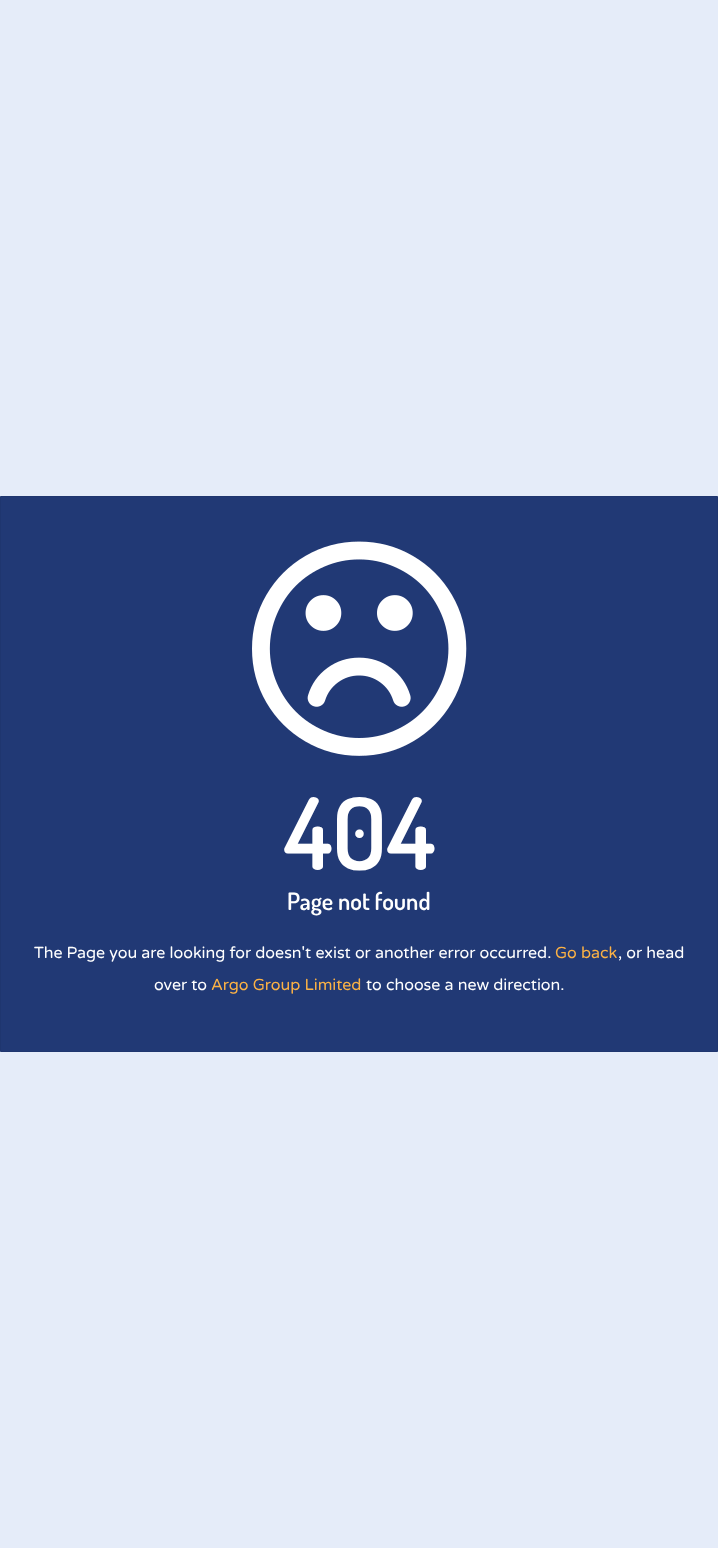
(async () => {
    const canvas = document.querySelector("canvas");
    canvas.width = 718;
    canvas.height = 1548;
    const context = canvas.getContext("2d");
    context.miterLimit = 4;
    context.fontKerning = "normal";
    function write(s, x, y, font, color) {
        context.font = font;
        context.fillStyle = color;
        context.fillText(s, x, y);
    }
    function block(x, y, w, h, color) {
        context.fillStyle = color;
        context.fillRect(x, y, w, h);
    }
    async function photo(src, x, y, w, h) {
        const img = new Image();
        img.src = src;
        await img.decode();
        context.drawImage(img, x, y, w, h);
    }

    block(0, 0, 718, 1548, "rgb(229, 236, 249)");
    context.fillStyle = "rgb(33, 57, 117)";
    context.beginPath();
    context.rect(0.5, 496.5, 717, 555);
    context.fill();
    context.strokeStyle = "rgb(31, 54, 111)";
    context.stroke();
    await photo("media/1.png", 252, 541, 215, 215);
    write("404", 284, 870, "600 100px Dosis", "rgb(255, 255, 255)");
    write("Page not found", 287, 910, "600 24px Dosis", "rgb(255, 255, 255)");
    write("The Page you are looking for doesn't exist or another error occurred.", 34, 958, "16px Varela Round", "rgb(255, 255, 255)");
    write("Go back", 555, 958, "16px Varela Round", "rgb(252, 178, 69)");
    write(", or head", 618, 958, "16px Varela Round", "rgb(255, 255, 255)");
    write("over to", 154, 990, "16px Varela Round", "rgb(255, 255, 255)");
    write("Argo Group Limited", 211, 990, "16px Varela Round", "rgb(252, 178, 69)");
    write("to choose a new direction.", 366, 990, "16px Varela Round", "rgb(255, 255, 255)");
})();
